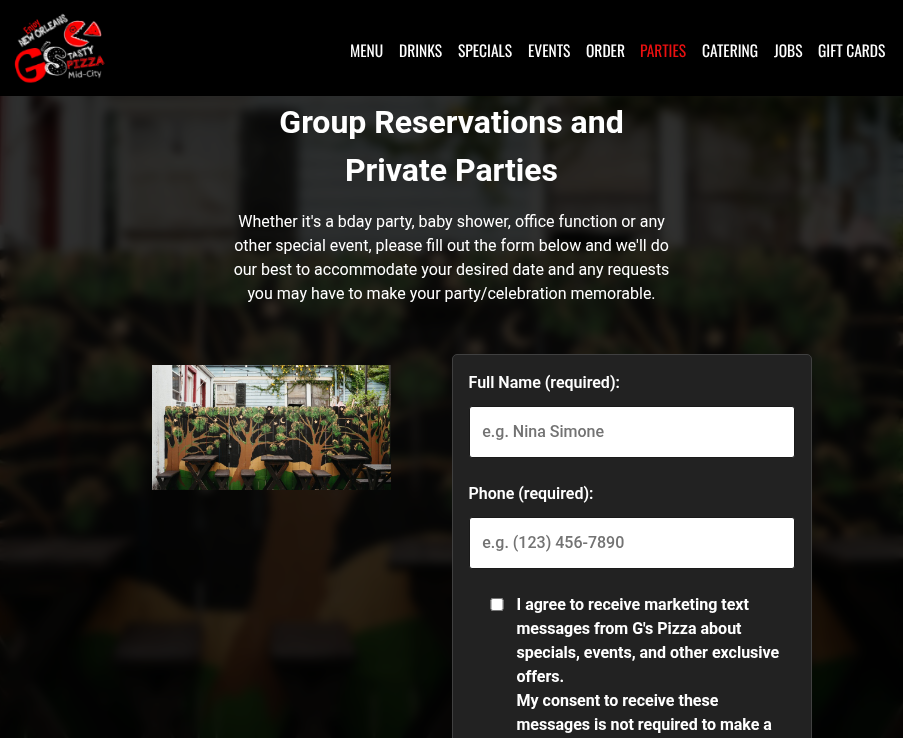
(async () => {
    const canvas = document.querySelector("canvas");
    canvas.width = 903;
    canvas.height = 738;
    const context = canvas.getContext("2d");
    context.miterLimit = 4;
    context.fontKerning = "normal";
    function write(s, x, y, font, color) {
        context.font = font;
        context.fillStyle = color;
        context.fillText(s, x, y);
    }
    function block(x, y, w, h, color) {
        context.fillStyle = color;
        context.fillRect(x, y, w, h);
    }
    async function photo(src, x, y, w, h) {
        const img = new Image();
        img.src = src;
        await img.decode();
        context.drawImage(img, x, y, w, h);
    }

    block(0, 0, 903, 738, "rgb(255, 255, 255)");
    block(0, 0, 903, 96, "rgb(0, 0, 0)");
    await photo("media/1.png", 14, 13, 91, 70);
    write("MENU", 350, 57, "15.5px Oswald", "rgb(255, 255, 255)");
    write("DRINKS", 399, 57, "15.5px Oswald", "rgb(255, 255, 255)");
    write("SPECIALS", 458, 57, "15.5px Oswald", "rgb(255, 255, 255)");
    write("EVENTS", 528, 57, "15.5px Oswald", "rgb(255, 255, 255)");
    write("ORDER", 586, 57, "15.5px Oswald", "rgb(255, 255, 255)");
    write("PARTIES", 640, 57, "15.5px Oswald", "rgb(234, 16, 16)");
    write("CATERING", 702, 57, "15.5px Oswald", "rgb(255, 255, 255)");
    write("JOBS", 774, 57, "15.5px Oswald", "rgb(255, 255, 255)");
    write("GIFT CARDS", 818, 57, "15.5px Oswald", "rgb(255, 255, 255)");
    await photo("media/2.png", 0, 96, 903, 642);
})();
